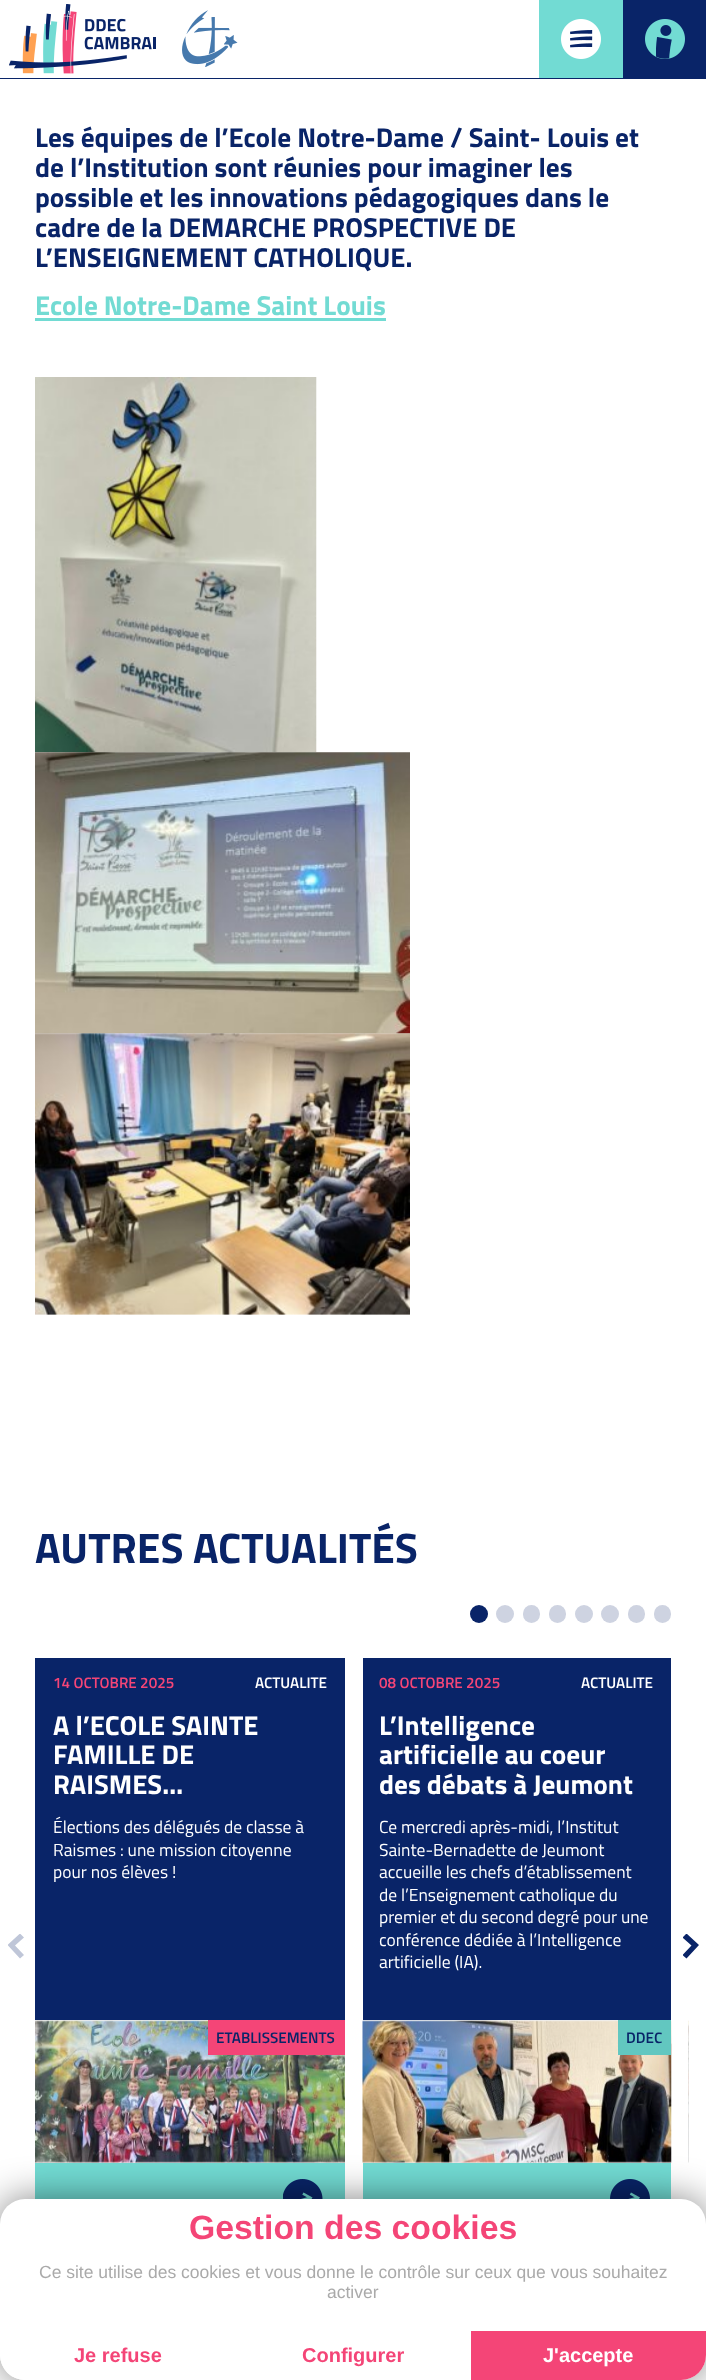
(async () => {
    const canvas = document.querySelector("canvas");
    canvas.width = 706;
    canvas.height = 2380;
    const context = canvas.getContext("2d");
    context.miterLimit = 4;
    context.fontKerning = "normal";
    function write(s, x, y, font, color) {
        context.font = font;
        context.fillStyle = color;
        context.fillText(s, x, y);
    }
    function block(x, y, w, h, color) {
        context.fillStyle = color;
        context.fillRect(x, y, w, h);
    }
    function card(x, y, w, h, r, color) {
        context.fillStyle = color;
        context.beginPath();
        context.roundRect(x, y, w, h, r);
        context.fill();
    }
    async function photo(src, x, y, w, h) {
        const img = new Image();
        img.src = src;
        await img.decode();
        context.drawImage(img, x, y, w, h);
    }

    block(0, 0, 706, 2380, "rgb(255, 255, 255)");
    block(0, 78, 706, 1, "rgb(9, 36, 104)");
    await photo("media/1.png", 9, 4, 229, 70);
    block(539, 0, 84, 78, "rgb(114, 219, 211)");
    await photo("media/2.png", 561, 19, 40, 40);
    block(623, 0, 83, 78, "rgb(9, 36, 104)");
    await photo("media/3.png", 645, 19, 40, 40);
    write("Les équipes de l’Ecole Notre-Dame / Saint- Louis et", 35, 147, "bold 27.3px Titillium Web", "rgb(9, 36, 104)");
    write("de l’Institution sont réunies pour imaginer les", 35, 177, "bold 27.3px Titillium Web", "rgb(9, 36, 104)");
    write("possible et les innovations pédagogiques dans le", 35, 207, "bold 27.3px Titillium Web", "rgb(9, 36, 104)");
    write("cadre de la DEMARCHE PROSPECTIVE DE", 35, 237, "bold 27.3px Titillium Web", "rgb(9, 36, 104)");
    write("L’ENSEIGNEMENT CATHOLIQUE.", 35, 267, "bold 27.3px Titillium Web", "rgb(9, 36, 104)");
    write("Ecole Notre-Dame Saint Louis", 35, 315, "bold 27.3px Titillium Web", "rgb(114, 219, 211)");
    block(35, 318, 351, 3, "rgb(114, 219, 211)");
    await photo("media/4.png", 35, 377, 282, 376);
    await photo("media/5.png", 35, 752, 375, 282);
    await photo("media/6.png", 35, 1033, 375, 282);
    write("AUTRES ACTUALITÉS", 35, 1563, "bold 42.5px Titillium Web", "rgb(9, 36, 104)");
    context.beginPath();
    context.arc(479, 1614, 9, 0, Math.PI * 2);
    context.fill();
    context.fillStyle = "rgb(206, 211, 225)";
    context.beginPath();
    context.arc(505, 1614, 9, 0, Math.PI * 2);
    context.fill();
    card(523, 1605, 17, 18, 8.5, "rgb(206, 211, 225)");
    card(549, 1605, 17, 18, 8.5, "rgb(206, 211, 225)");
    context.beginPath();
    context.arc(584, 1614, 9, 0, Math.PI * 2);
    context.fill();
    context.beginPath();
    context.arc(610, 1614, 9, 0, Math.PI * 2);
    context.fill();
    card(628, 1605, 17, 18, 8.5, "rgb(206, 211, 225)");
    card(654, 1605, 17, 18, 8.5, "rgb(206, 211, 225)");
    block(35, 1658, 310, 362, "rgb(9, 36, 104)");
    write("14 OCTOBRE 2025", 53, 1688, "600 15.25px Titillium Web", "rgb(244, 69, 119)");
    write("ACTUALITE", 255, 1688, "600 15.25px Titillium Web", "rgb(255, 255, 255)");
    write("A l’ECOLE SAINTE", 53, 1735, "bold 27.3px Titillium Web", "rgb(255, 255, 255)");
    write("FAMILLE DE", 53, 1764, "bold 27.3px Titillium Web", "rgb(255, 255, 255)");
    write("RAISMES…", 53, 1794, "bold 27.3px Titillium Web", "rgb(255, 255, 255)");
    write("Élections des délégués de classe à", 53, 1833, "17.5px Titillium Web", "rgb(255, 255, 255)");
    write("Raismes : une mission citoyenne", 53, 1856, "17.5px Titillium Web", "rgb(255, 255, 255)");
    write("pour nos élèves !", 53, 1878, "17.5px Titillium Web", "rgb(255, 255, 255)");
    block(35, 2020, 310, 143, "rgb(240, 240, 240)");
    await photo("media/7.png", 35, 2020, 310, 143);
    block(208, 2020, 137, 35, "rgb(244, 69, 119)");
    write("ETABLISSEMENTS", 216, 2043, "600 15.25px Titillium Web", "rgb(9, 36, 104)");
    block(35, 2163, 310, 36, "rgb(114, 219, 211)");
    await photo("media/8.png", 283, 2179, 40, 20);
    block(363, 1658, 308, 362, "rgb(9, 36, 104)");
    write("08 OCTOBRE 2025", 379, 1688, "600 15.25px Titillium Web", "rgb(244, 69, 119)");
    write("ACTUALITE", 581, 1688, "600 15.25px Titillium Web", "rgb(255, 255, 255)");
    write("L’Intelligence", 379, 1735, "bold 27.3px Titillium Web", "rgb(255, 255, 255)");
    write("artificielle au coeur", 379, 1764, "bold 27.3px Titillium Web", "rgb(255, 255, 255)");
    write("des débats à Jeumont", 379, 1794, "bold 27.3px Titillium Web", "rgb(255, 255, 255)");
    write("Ce mercredi après-midi, l’Institut", 379, 1833, "17.5px Titillium Web", "rgb(255, 255, 255)");
    write("Sainte-Bernadette de Jeumont", 379, 1856, "17.5px Titillium Web", "rgb(255, 255, 255)");
    write("accueille les chefs d’établissement", 379, 1878, "17.5px Titillium Web", "rgb(255, 255, 255)");
    write("de l’Enseignement catholique du", 379, 1901, "17.5px Titillium Web", "rgb(255, 255, 255)");
    write("premier et du second degré pour une", 379, 1923, "17.5px Titillium Web", "rgb(255, 255, 255)");
    write("conférence dédiée à l’Intelligence", 379, 1946, "17.5px Titillium Web", "rgb(255, 255, 255)");
    write("artificielle (IA).", 379, 1968, "17.5px Titillium Web", "rgb(255, 255, 255)");
    block(363, 2020, 308, 143, "rgb(240, 240, 240)");
    await photo("media/9.png", 362, 2020, 310, 143);
    block(618, 2020, 53, 35, "rgb(98, 199, 192)");
    write("DDEC", 626, 2043, "600 15.25px Titillium Web", "rgb(9, 36, 104)");
    block(363, 2163, 308, 36, "rgb(114, 219, 211)");
    await photo("media/10.png", 610, 2179, 40, 20);
    await photo("media/11.png", 688, 2020, 1, 143);
    context.save();
    context.beginPath();
    context.rect(8, 1934, 16, 26);
    context.clip();
    context.fillStyle = "rgb(191, 198, 216)";
    context.beginPath();
    context.moveTo(20, 1958.5);
    context.lineTo(7.5, 1945);
    context.lineTo(20, 1933.5);
    context.lineTo(24, 1937.5);
    context.lineTo(15, 1945.5);
    context.lineTo(24, 1955);
    context.closePath();
    context.fill();
    context.restore();
    context.save();
    context.beginPath();
    context.rect(683, 1934, 16, 26);
    context.clip();
    context.fillStyle = "rgb(9, 36, 104)";
    context.beginPath();
    context.moveTo(686.5, 1958.5);
    context.lineTo(682.5, 1955);
    context.lineTo(691.5, 1945.5);
    context.lineTo(682.5, 1937.5);
    context.lineTo(686.5, 1933.5);
    context.lineTo(699, 1945);
    context.closePath();
    context.fill();
    context.restore();
    context.fillStyle = "rgba(0, 0, 0, 0.5)";
    context.filter = "blur(19px)";
    context.beginPath();
    context.roundRect(0, 2199, 706, 181, 25);
    context.fill();
    context.filter = "none";
    card(0, 2199, 706, 181, 25, "rgb(255, 255, 255)");
    write("Gestion des cookies", 189, 2239, "bold 33.75px Liberation Sans", "rgb(244, 69, 119)");
    write("Ce site utilise des cookies et vous donne le contrôle sur ceux que vous souhaitez", 39, 2278, "17.5px Liberation Sans", "rgb(170, 170, 170)");
    write("activer", 327, 2298, "17.5px Liberation Sans", "rgb(170, 170, 170)");
    context.fillStyle = "rgb(255, 255, 255)";
    context.beginPath();
    context.roundRect(0, 2331, 235, 49, [0, 0, 0, 25]);
    context.fill();
    write("Je refuse", 74, 2362, "bold 20px Liberation Sans", "rgb(244, 69, 119)");
    write("Configurer", 302, 2362, "bold 20px Liberation Sans", "rgb(244, 69, 119)");
    context.beginPath();
    context.roundRect(471, 2331, 235, 49, [0, 0, 25, 0]);
    context.fill();
    write("J'accepte", 543, 2362, "bold 20px Liberation Sans", "rgb(255, 255, 255)");
})();
